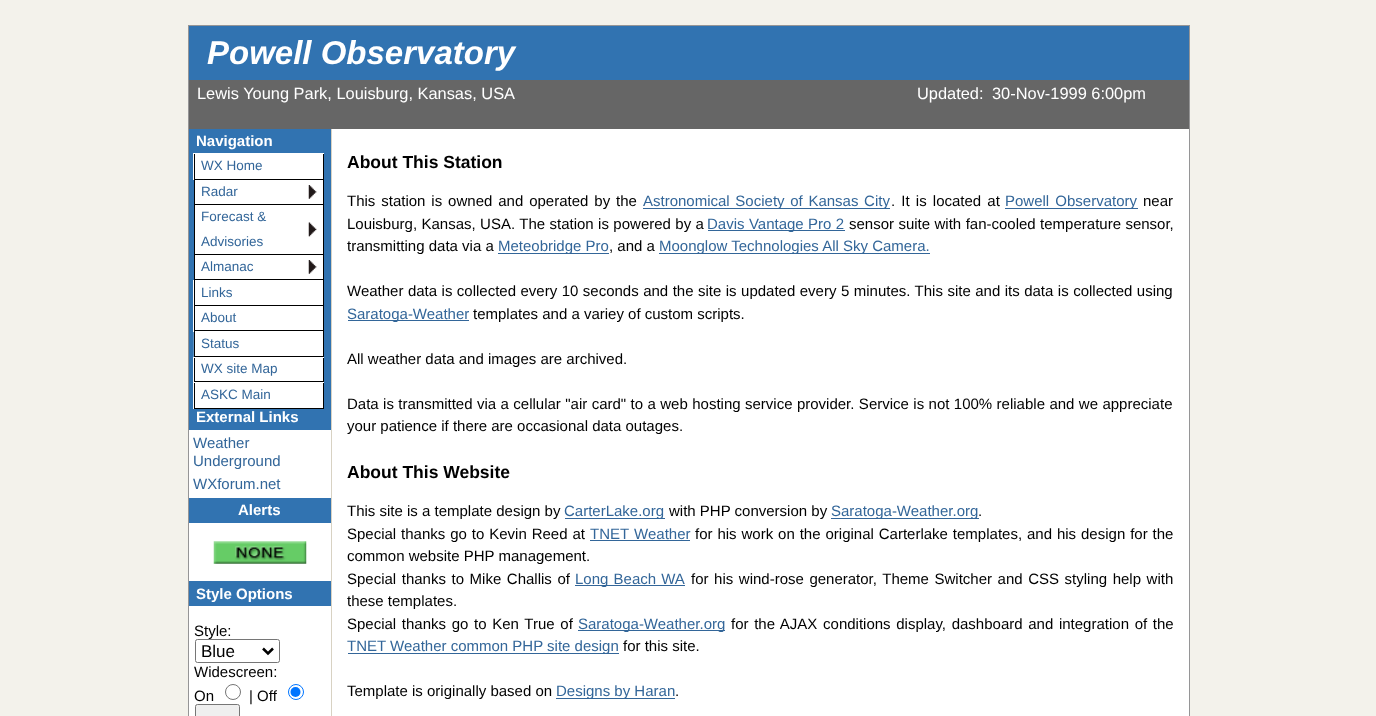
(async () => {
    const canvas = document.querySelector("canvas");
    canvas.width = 1376;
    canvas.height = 716;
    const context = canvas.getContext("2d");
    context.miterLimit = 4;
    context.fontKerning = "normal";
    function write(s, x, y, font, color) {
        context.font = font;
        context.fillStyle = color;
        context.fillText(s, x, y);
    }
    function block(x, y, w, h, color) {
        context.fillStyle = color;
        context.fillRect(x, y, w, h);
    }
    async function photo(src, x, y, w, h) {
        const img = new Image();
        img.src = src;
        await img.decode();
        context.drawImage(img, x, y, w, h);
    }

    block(0, 0, 1376, 716, "rgb(243, 242, 235)");
    block(189, 129, 1000, 587, "rgb(255, 255, 255)");
    context.strokeStyle = "rgb(149, 149, 150)";
    context.strokeRect(188.5, 25.5, 1001, 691);
    block(189, 26, 1000, 54, "rgb(49, 115, 177)");
    write("Powell Observatory", 207, 64, "italic bold 33px Liberation Sans", "rgb(255, 255, 255)");
    block(189, 80, 1000, 49, "rgb(102, 102, 102)");
    write("Lewis Young Park, Louisburg, Kansas, USA", 197, 99, "16.4px Liberation Sans", "rgb(255, 255, 255)");
    write("Updated:", 917, 99, "16.4px Liberation Sans", "rgb(255, 255, 255)");
    write("30-Nov-1999 6:00pm", 992, 99, "16.4px Liberation Sans", "rgb(255, 255, 255)");
    block(189, 129, 142, 301, "rgb(49, 115, 177)");
    write("Navigation", 196, 146, "bold 15px Liberation Sans", "rgb(255, 255, 255)");
    block(193, 153, 131, 27, "rgb(255, 255, 255)");
    block(323, 154, 1, 204, "rgb(0, 0, 0)");
    block(194, 179, 130, 1, "rgb(0, 0, 0)");
    block(194, 154, 1, 26, "rgb(0, 0, 0)");
    write("WX Home", 201, 170, "13.5px Liberation Sans", "rgb(51, 102, 153)");
    block(195, 180, 128, 24, "rgb(255, 255, 255)");
    await photo("media/1.png", 308, 185, 9, 14);
    block(194, 204, 130, 1, "rgb(0, 0, 0)");
    block(194, 180, 1, 25, "rgb(0, 0, 0)");
    write("Radar", 201, 196, "13.5px Liberation Sans", "rgb(51, 102, 153)");
    block(195, 205, 128, 49, "rgb(255, 255, 255)");
    await photo("media/2.png", 308, 222, 9, 15);
    block(194, 254, 130, 1, "rgb(0, 0, 0)");
    block(194, 205, 1, 50, "rgb(0, 0, 0)");
    write("Forecast &", 201, 221, "13.5px Liberation Sans", "rgb(51, 102, 153)");
    write("Advisories", 201, 246, "13.5px Liberation Sans", "rgb(51, 102, 153)");
    block(195, 255, 128, 24, "rgb(255, 255, 255)");
    await photo("media/1.png", 308, 260, 9, 14);
    block(194, 279, 130, 1, "rgb(0, 0, 0)");
    block(194, 255, 1, 25, "rgb(0, 0, 0)");
    write("Almanac", 201, 271, "13.5px Liberation Sans", "rgb(51, 102, 153)");
    block(193, 280, 130, 52, "rgb(255, 255, 255)");
    block(194, 305, 130, 1, "rgb(0, 0, 0)");
    block(194, 280, 1, 26, "rgb(0, 0, 0)");
    write("Links", 201, 297, "13.5px Liberation Sans", "rgb(51, 102, 153)");
    block(194, 330, 130, 1, "rgb(0, 0, 0)");
    block(194, 306, 1, 25, "rgb(0, 0, 0)");
    write("About", 201, 322, "13.5px Liberation Sans", "rgb(51, 102, 153)");
    block(195, 332, 128, 24, "rgb(255, 255, 255)");
    await photo("media/3.png", 193, 332, 1, 25);
    block(194, 356, 130, 1, "rgb(0, 0, 0)");
    block(194, 331, 1, 27, "rgb(0, 0, 0)");
    write("Status", 201, 348, "13.5px Liberation Sans", "rgb(51, 102, 153)");
    block(193, 357, 131, 25, "rgb(255, 255, 255)");
    block(323, 358, 1, 25, "rgb(0, 0, 0)");
    block(194, 381, 130, 1, "rgb(0, 0, 0)");
    block(194, 358, 1, 25, "rgb(0, 0, 0)");
    write("WX site Map", 201, 373, "13.5px Liberation Sans", "rgb(51, 102, 153)");
    block(193, 382, 131, 27, "rgb(255, 255, 255)");
    block(323, 383, 1, 26, "rgb(0, 0, 0)");
    block(194, 408, 130, 1, "rgb(0, 0, 0)");
    block(194, 383, 1, 26, "rgb(0, 0, 0)");
    write("ASKC Main", 201, 399, "13.5px Liberation Sans", "rgb(51, 102, 153)");
    write("External Links", 196, 422, "bold 15px Liberation Sans", "rgb(255, 255, 255)");
    write("Weather", 193, 448, "15px Liberation Sans", "rgb(51, 102, 153)");
    write("Underground", 193, 466, "15px Liberation Sans", "rgb(51, 102, 153)");
    write("WXforum.net", 193, 489, "15px Liberation Sans", "rgb(51, 102, 153)");
    block(189, 498, 142, 25, "rgb(49, 115, 177)");
    write("Alerts", 238, 515, "bold 15px Liberation Sans", "rgb(255, 255, 255)");
    await photo("media/4.png", 213, 541, 94, 23);
    block(189, 581, 142, 25, "rgb(49, 115, 177)");
    write("Style Options", 196, 599, "bold 15px Liberation Sans", "rgb(255, 255, 255)");
    write("Style:", 194, 636, "15px Liberation Sans", "rgb(0, 0, 0)");
    context.fillStyle = "rgb(255, 255, 255)";
    context.beginPath();
    context.roundRect(195.5, 639.5, 84, 23, 2);
    context.fill();
    context.strokeStyle = "rgb(118, 118, 118)";
    context.stroke();
    context.beginPath();
    context.moveTo(263, 648.5);
    context.lineTo(268, 653.5);
    context.lineTo(273, 648.5);
    context.strokeStyle = "rgb(0, 0, 0)";
    context.lineWidth = 2.5;
    context.stroke();
    write("Blue", 201, 657, "17px Liberation Sans", "rgb(0, 0, 0)");
    write("Widescreen:", 194, 677, "15px Liberation Sans", "rgb(0, 0, 0)");
    write("On", 194, 701, "15px Liberation Sans", "rgb(0, 0, 0)");
    context.beginPath();
    context.arc(233, 692, 7.5, 0, Math.PI * 2);
    context.strokeStyle = "rgb(118, 118, 118)";
    context.lineWidth = 1;
    context.stroke();
    write("| Off", 249, 701, "15px Liberation Sans", "rgb(0, 0, 0)");
    context.beginPath();
    context.arc(296, 692, 7.5, 0, Math.PI * 2);
    context.strokeStyle = "rgb(0, 117, 255)";
    context.stroke();
    context.fillStyle = "rgb(0, 117, 255)";
    context.beginPath();
    context.arc(295.5, 692, 5, 0, Math.PI * 2);
    context.fill();
    context.fillStyle = "rgb(239, 239, 239)";
    context.beginPath();
    context.roundRect(195.5, 704.5, 44, 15, 2);
    context.fill();
    context.strokeStyle = "rgb(118, 118, 118)";
    context.stroke();
    block(331, 129, 1, 587, "rgb(216, 210, 195)");
    write("About This Station", 347, 168, "bold 17.5px Liberation Sans", "rgb(0, 0, 0)");
    context.wordSpacing = "1.75px";
    write("This station is owned and operated by the", 347, 206, "15px Liberation Sans", "rgb(0, 0, 0)");
    block(643, 208, 247, 1, "rgb(51, 102, 153)");
    context.wordSpacing = "1.5px";
    write("Astronomical Society of Kansas City", 643, 206, "15px Liberation Sans", "rgb(51, 102, 153)");
    context.wordSpacing = "2px";
    write(". It is located at", 891, 206, "15px Liberation Sans", "rgb(0, 0, 0)");
    block(1005, 208, 133, 1, "rgb(51, 102, 153)");
    write("Powell Observatory", 1005, 206, "15px Liberation Sans", "rgb(51, 102, 153)");
    context.wordSpacing = "0px";
    write("near", 1143, 206, "15px Liberation Sans", "rgb(0, 0, 0)");
    context.wordSpacing = "0.25px";
    write("Louisburg, Kansas, USA. The station is powered by a", 347, 229, "15px Liberation Sans", "rgb(0, 0, 0)");
    block(708, 230, 137, 1, "rgb(51, 102, 153)");
    write("Davis Vantage Pro 2", 707, 229, "15px Liberation Sans", "rgb(51, 102, 153)");
    write("sensor suite with fan-cooled temperature sensor,", 849, 229, "15px Liberation Sans", "rgb(0, 0, 0)");
    context.wordSpacing = "0px";
    write("transmitting data via a", 347, 251, "15px Liberation Sans", "rgb(0, 0, 0)");
    block(498, 253, 111, 1, "rgb(51, 102, 153)");
    write("Meteobridge Pro", 498, 251, "15px Liberation Sans", "rgb(51, 102, 153)");
    write(", and a", 609, 251, "15px Liberation Sans", "rgb(0, 0, 0)");
    block(659, 253, 271, 1, "rgb(51, 102, 153)");
    write("Moonglow Technologies All Sky Camera.", 659, 251, "15px Liberation Sans", "rgb(51, 102, 153)");
    context.wordSpacing = "0.3px";
    write("Weather data is collected every 10 seconds and the site is updated every 5 minutes. This site and its data is collected using", 347, 296, "15px Liberation Sans", "rgb(0, 0, 0)");
    block(348, 320, 121, 1, "rgb(51, 102, 153)");
    context.wordSpacing = "0px";
    write("Saratoga-Weather", 347, 319, "15px Liberation Sans", "rgb(51, 102, 153)");
    write("templates and a variey of custom scripts.", 473, 319, "15px Liberation Sans", "rgb(0, 0, 0)");
    write("All weather data and images are archived.", 347, 364, "15px Liberation Sans", "rgb(0, 0, 0)");
    context.wordSpacing = "0.25px";
    write("Data is transmitted via a cellular \"air card\" to a web hosting service provider. Service is not 100% reliable and we appreciate", 347, 409, "15px Liberation Sans", "rgb(0, 0, 0)");
    context.wordSpacing = "0px";
    write("your patience if there are occasional data outages.", 347, 431, "15px Liberation Sans", "rgb(0, 0, 0)");
    write("About This Website", 347, 478, "bold 17.5px Liberation Sans", "rgb(0, 0, 0)");
    write("This site is a template design by", 347, 516, "15px Liberation Sans", "rgb(0, 0, 0)");
    block(565, 518, 100, 1, "rgb(51, 102, 153)");
    write("CarterLake.org", 564, 516, "15px Liberation Sans", "rgb(51, 102, 153)");
    write("with PHP conversion by", 669, 516, "15px Liberation Sans", "rgb(0, 0, 0)");
    block(831, 518, 148, 1, "rgb(51, 102, 153)");
    write("Saratoga-Weather.org", 831, 516, "15px Liberation Sans", "rgb(51, 102, 153)");
    write(".", 978, 516, "15px Liberation Sans", "rgb(0, 0, 0)");
    context.wordSpacing = "0.75px";
    write("Special thanks go to Kevin Reed at", 347, 539, "15px Liberation Sans", "rgb(0, 0, 0)");
    context.wordSpacing = "1px";
    write("TNET Weather", 590, 539, "15px Liberation Sans", "rgb(51, 102, 153)");
    block(590, 540, 100, 1, "rgb(51, 102, 153)");
    context.wordSpacing = "0.75px";
    write("for his work on the original Carterlake templates, and his design for the", 695, 539, "15px Liberation Sans", "rgb(0, 0, 0)");
    context.wordSpacing = "0px";
    write("common website PHP management.", 347, 561, "15px Liberation Sans", "rgb(0, 0, 0)");
    context.wordSpacing = "1.4px";
    write("Special thanks to Mike Challis of", 347, 584, "15px Liberation Sans", "rgb(0, 0, 0)");
    block(575, 585, 110, 1, "rgb(51, 102, 153)");
    context.wordSpacing = "1px";
    write("Long Beach WA", 575, 584, "15px Liberation Sans", "rgb(51, 102, 153)");
    context.wordSpacing = "1.4px";
    write("for his wind-rose generator, Theme Switcher and CSS styling help with", 691, 584, "15px Liberation Sans", "rgb(0, 0, 0)");
    context.wordSpacing = "0px";
    write("these templates.", 347, 606, "15px Liberation Sans", "rgb(0, 0, 0)");
    context.wordSpacing = "1.5px";
    write("Special thanks go to Ken True of", 347, 629, "15px Liberation Sans", "rgb(0, 0, 0)");
    block(578, 630, 147, 1, "rgb(51, 102, 153)");
    context.wordSpacing = "0px";
    write("Saratoga-Weather.org", 578, 629, "15px Liberation Sans", "rgb(51, 102, 153)");
    context.wordSpacing = "1.5px";
    write("for the AJAX conditions display, dashboard and integration of the", 731, 629, "15px Liberation Sans", "rgb(0, 0, 0)");
    block(348, 653, 271, 1, "rgb(51, 102, 153)");
    context.wordSpacing = "0px";
    write("TNET Weather common PHP site design", 347, 651, "15px Liberation Sans", "rgb(51, 102, 153)");
    write("for this site.", 623, 651, "15px Liberation Sans", "rgb(0, 0, 0)");
    write("Template is originally based on", 347, 696, "15px Liberation Sans", "rgb(0, 0, 0)");
    block(556, 698, 119, 1, "rgb(51, 102, 153)");
    write("Designs by Haran", 556, 696, "15px Liberation Sans", "rgb(51, 102, 153)");
    write(".", 675, 696, "15px Liberation Sans", "rgb(0, 0, 0)");
})();
